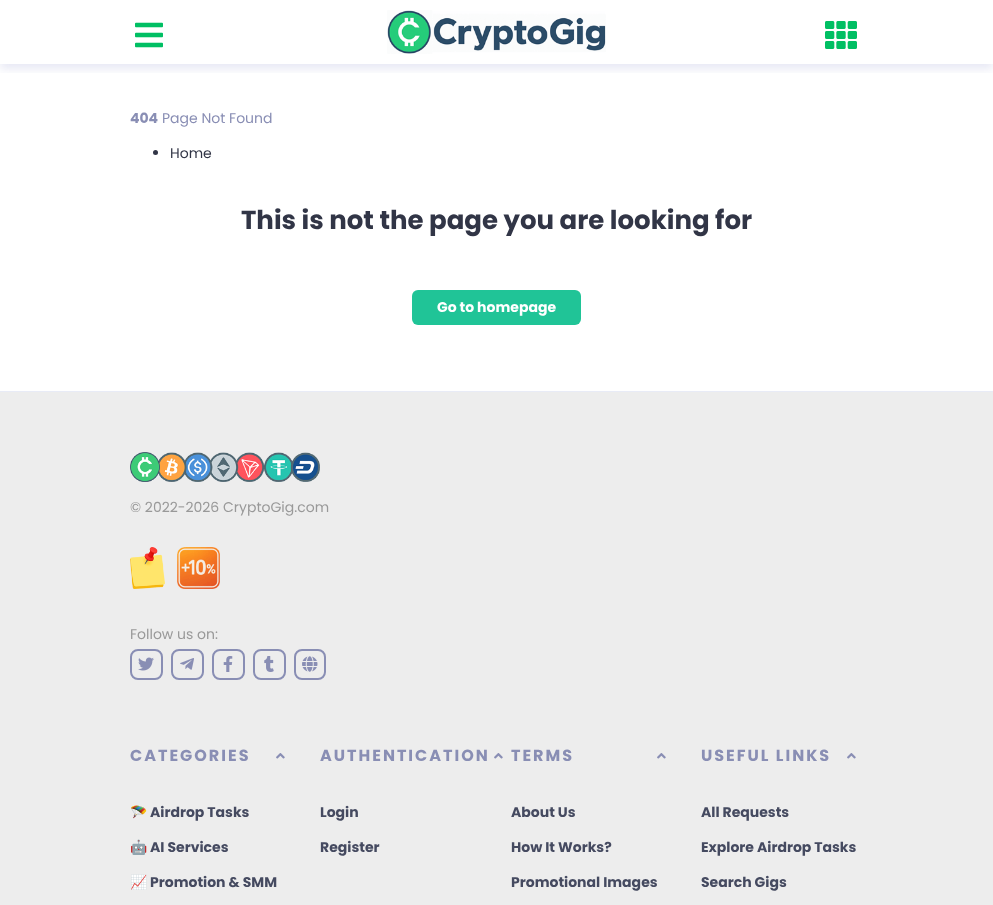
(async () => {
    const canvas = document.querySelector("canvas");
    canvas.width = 993;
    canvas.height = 905;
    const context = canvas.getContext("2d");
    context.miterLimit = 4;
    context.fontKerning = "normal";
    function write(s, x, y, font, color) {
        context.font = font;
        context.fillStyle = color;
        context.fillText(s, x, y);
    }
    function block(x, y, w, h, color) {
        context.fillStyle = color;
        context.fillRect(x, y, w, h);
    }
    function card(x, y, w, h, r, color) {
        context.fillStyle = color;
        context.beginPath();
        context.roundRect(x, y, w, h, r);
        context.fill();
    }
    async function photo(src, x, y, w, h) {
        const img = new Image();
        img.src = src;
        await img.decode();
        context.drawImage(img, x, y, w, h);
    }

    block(0, 0, 993, 905, "rgb(255, 255, 255)");
    context.save();
    context.beginPath();
    context.rect(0, 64, 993, 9);
    context.clip();
    context.fillStyle = "rgba(18, 28, 144, 0.1)";
    context.filter = "blur(5px)";
    context.beginPath();
    context.rect(0, 5, 993, 64);
    context.fill();
    context.filter = "none";
    context.restore();
    await photo("media/1.png", 135, 22, 28, 26);
    await photo("media/2.png", 387, 10, 219, 44);
    await photo("media/3.png", 825, 21, 32, 28);
    write("404", 130, 123, "bold 14px Poppins", "rgb(137, 142, 180)");
    write("Page Not Found", 162, 123, "14px Poppins", "rgb(137, 142, 180)");
    context.fillStyle = "rgb(49, 53, 70)";
    context.beginPath();
    context.arc(155.5, 152.5, 2.5, 0, Math.PI * 2);
    context.fill();
    write("Home", 170, 158, "14px Poppins", "rgb(49, 53, 70)");
    write("This is not the page you are looking for", 241, 229, "bold 26px Poppins", "rgb(49, 53, 70)");
    card(412, 290, 169, 35, 6, "rgb(32, 196, 151)");
    write("Go to homepage", 437, 312, "bold 14px Poppins", "rgb(255, 255, 255)");
    block(0, 392, 993, 513, "rgb(237, 237, 237)");
    block(0, 391, 993, 1, "rgb(232, 235, 246)");
    await photo("media/4.png", 130, 452, 190, 30);
    write("© 2022-2026 CryptoGig.com", 130, 512, "14px Poppins", "rgb(153, 153, 153)");
    await photo("media/5.png", 130, 547, 35, 42);
    await photo("media/6.png", 177, 547, 43, 42);
    write("Follow us on:", 130, 639, "14px Poppins", "rgb(153, 153, 153)");
    context.beginPath();
    context.roundRect(131, 650, 31, 29, 7);
    context.strokeStyle = "rgb(137, 142, 180)";
    context.lineWidth = 2;
    context.stroke();
    await photo("media/7.png", 138, 657, 16, 14);
    context.beginPath();
    context.roundRect(172, 650, 31, 29, 7);
    context.stroke();
    await photo("media/8.png", 180, 658, 14, 12);
    context.beginPath();
    context.roundRect(213, 650, 31, 29, 7);
    context.stroke();
    await photo("media/9.png", 223, 656, 10, 16);
    context.beginPath();
    context.roundRect(254, 650, 31, 29, 7);
    context.stroke();
    await photo("media/10.png", 264, 656, 10, 16);
    context.beginPath();
    context.roundRect(295, 650, 30, 29, 7);
    context.stroke();
    await photo("media/11.png", 302, 656, 16, 16);
    context.letterSpacing = "2px";
    write("CATEGORIES", 130, 761, "bold 16px Poppins", "rgb(137, 142, 180)");
    await photo("media/12.png", 276, 753, 9, 6);
    context.letterSpacing = "0px";
    write("🪂", 130, 817, "bold 14px Noto Color Emoji", "rgb(69, 74, 96)");
    write("Airdrop Tasks", 150, 817, "bold 14px Poppins", "rgb(69, 74, 96)");
    write("🤖", 130, 852, "bold 14px Noto Color Emoji", "rgb(69, 74, 96)");
    write("AI Services", 150, 852, "bold 14px Poppins", "rgb(69, 74, 96)");
    write("📈", 130, 887, "bold 14px Noto Color Emoji", "rgb(69, 74, 96)");
    write("Promotion & SMM", 150, 887, "bold 14px Poppins", "rgb(69, 74, 96)");
    context.letterSpacing = "2px";
    write("AUTHENTICATION", 320, 761, "bold 16px Poppins", "rgb(137, 142, 180)");
    await photo("media/12.png", 494, 753, 9, 6);
    context.letterSpacing = "0px";
    write("Login", 320, 817, "bold 14px Poppins", "rgb(69, 74, 96)");
    write("Register", 320, 852, "bold 14px Poppins", "rgb(69, 74, 96)");
    context.letterSpacing = "2px";
    write("TERMS", 511, 761, "bold 16px Poppins", "rgb(137, 142, 180)");
    await photo("media/12.png", 657, 753, 9, 6);
    context.letterSpacing = "0px";
    write("About Us", 511, 817, "bold 14px Poppins", "rgb(69, 74, 96)");
    write("How It Works?", 511, 852, "bold 14px Poppins", "rgb(69, 74, 96)");
    write("Promotional Images", 511, 887, "bold 14px Poppins", "rgb(69, 74, 96)");
    context.letterSpacing = "2px";
    write("USEFUL LINKS", 701, 761, "bold 16px Poppins", "rgb(137, 142, 180)");
    await photo("media/12.png", 847, 753, 9, 6);
    context.letterSpacing = "0px";
    write("All Requests", 701, 817, "bold 14px Poppins", "rgb(69, 74, 96)");
    write("Explore Airdrop Tasks", 701, 852, "bold 14px Poppins", "rgb(69, 74, 96)");
    write("Search Gigs", 701, 887, "bold 14px Poppins", "rgb(69, 74, 96)");
})();
